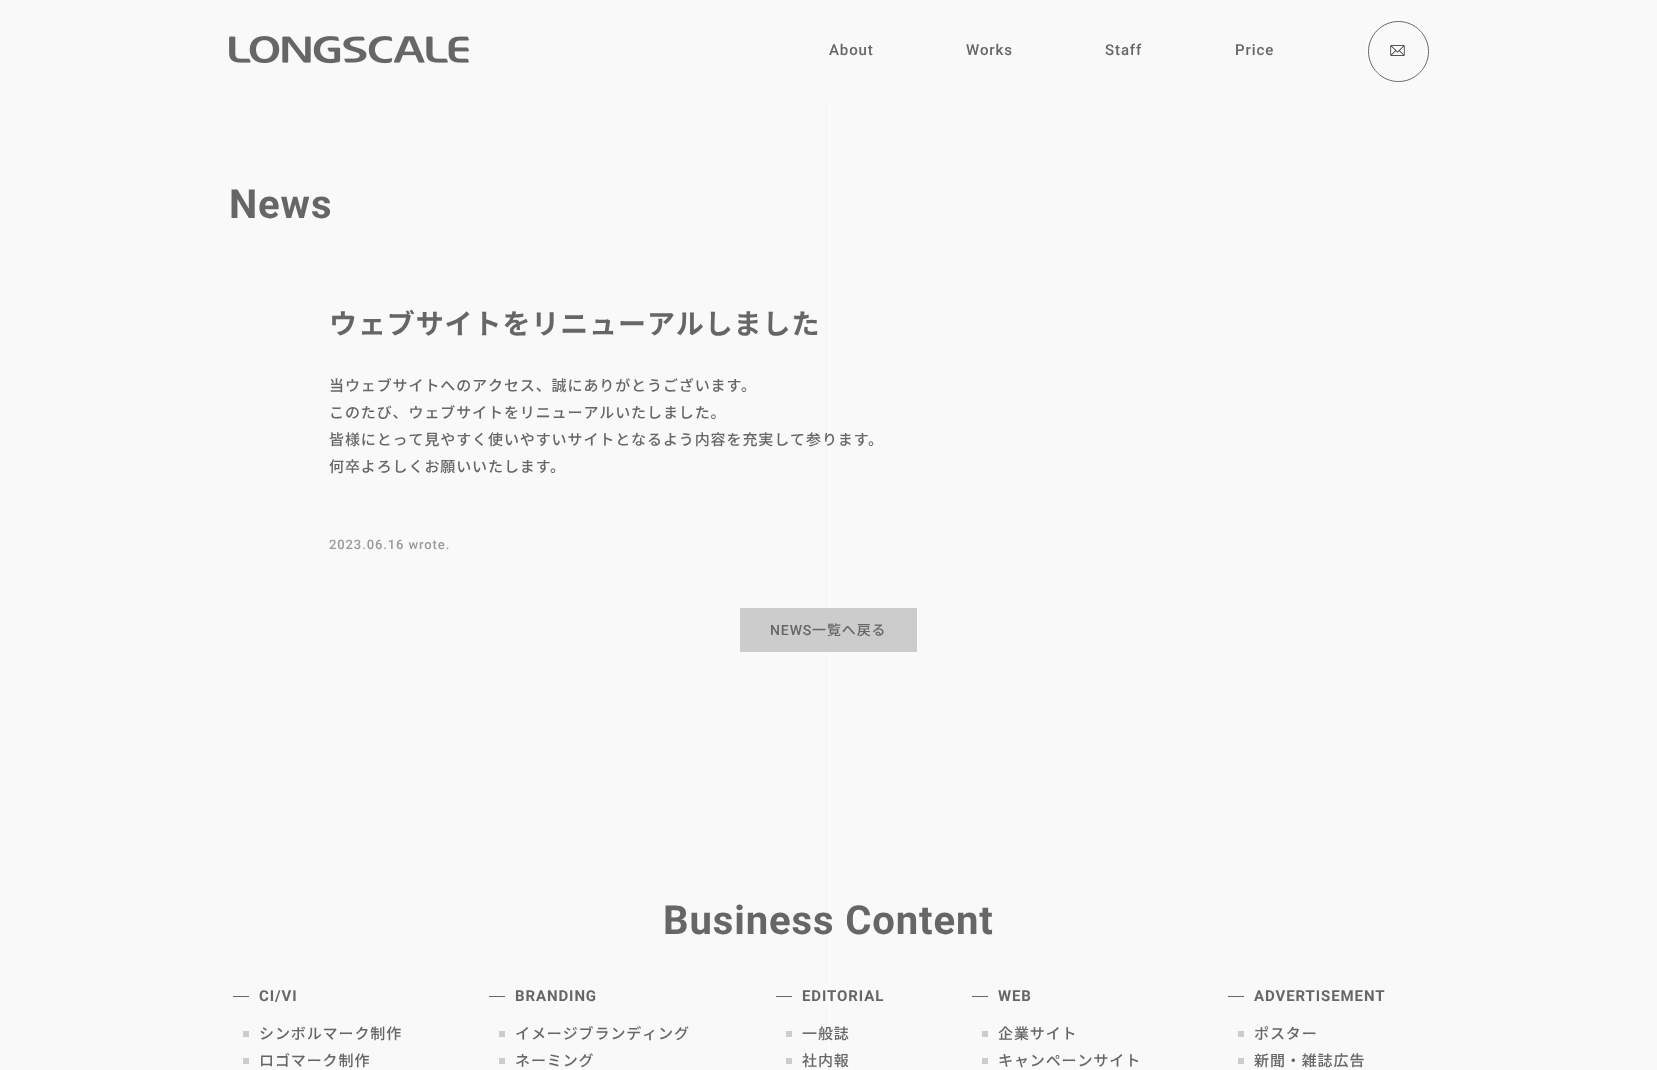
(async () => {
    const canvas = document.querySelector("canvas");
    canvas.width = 1657;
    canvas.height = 1070;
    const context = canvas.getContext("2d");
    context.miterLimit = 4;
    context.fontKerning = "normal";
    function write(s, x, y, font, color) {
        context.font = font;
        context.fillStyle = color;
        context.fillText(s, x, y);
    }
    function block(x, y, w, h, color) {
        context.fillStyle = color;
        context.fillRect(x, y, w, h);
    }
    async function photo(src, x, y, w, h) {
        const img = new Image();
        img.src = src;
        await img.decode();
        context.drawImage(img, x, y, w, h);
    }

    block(0, 0, 1657, 1070, "rgb(249, 249, 249)");
    await photo("media/1.png", 229, 36, 240, 28);
    context.letterSpacing = "0.9px";
    write("About", 829, 55, "500 15px Roboto", "rgb(102, 102, 102)");
    write("Works", 966, 55, "500 15px Roboto", "rgb(102, 102, 102)");
    write("Staff", 1105, 55, "500 15px Roboto", "rgb(102, 102, 102)");
    write("Price", 1235, 55, "500 15px Roboto", "rgb(102, 102, 102)");
    await photo("media/2.png", 1390, 45, 15, 11);
    context.beginPath();
    context.arc(1397, 50, 30.5, 0, Math.PI * 2);
    context.strokeStyle = "rgb(255, 255, 255)";
    context.stroke();
    context.beginPath();
    context.moveTo(1368.5, 51.5);
    context.bezierCurveTo(1368.5, 35, 1382, 21.5, 1398.5, 21.5);
    context.bezierCurveTo(1415, 21.5, 1428.5, 35, 1428.5, 51.5);
    context.bezierCurveTo(1428.5, 68, 1415, 81.5, 1398.5, 81.5);
    context.bezierCurveTo(1382, 81.5, 1368.5, 68, 1368.5, 51.5);
    context.closePath();
    context.strokeStyle = "rgb(102, 102, 102)";
    context.stroke();
    block(829, 100, 1, 970, "rgb(255, 255, 255)");
    write("News", 229, 218, "bold 40px Roboto", "rgb(102, 102, 102)");
    write("ウェブサイトをリニューアルしました", 329, 334, "bold 28px Noto Sans JP", "rgb(102, 102, 102)");
    write("当ウェブサイトへのアクセス、誠にありがとうございます。", 329, 391, "500 15px Noto Sans JP", "rgb(102, 102, 102)");
    write("このたび、ウェブサイトをリニューアルいたしました。", 329, 418, "500 15px Noto Sans JP", "rgb(102, 102, 102)");
    write("皆様にとって見やすく使いやすいサイトとなるよう内容を充実して参ります。", 329, 445, "500 15px Noto Sans JP", "rgb(102, 102, 102)");
    write("何卒よろしくお願いいたします。", 329, 472, "500 15px Noto Sans JP", "rgb(102, 102, 102)");
    write("2023.06.16 wrote.", 329, 549, "500 13px Roboto", "rgb(153, 153, 153)");
    block(740, 608, 177, 44, "rgb(204, 204, 204)");
    write("NEWS", 770, 635, "500 14px Roboto", "rgb(102, 102, 102)");
    write("一覧へ戻る", 812, 635, "500 14px Noto Sans JP", "rgb(102, 102, 102)");
    write("Business Content", 663, 934, "bold 40px Roboto", "rgb(102, 102, 102)");
    block(233, 996, 16, 1, "rgb(102, 102, 102)");
    write("CI/VI", 259, 1001, "bold 15px Roboto", "rgb(102, 102, 102)");
    block(243, 1031, 6, 6, "rgb(204, 204, 204)");
    write("シンボルマーク制作", 259, 1039, "500 15px Noto Sans JP", "rgb(102, 102, 102)");
    block(243, 1058, 6, 6, "rgb(204, 204, 204)");
    write("ロゴマーク制作", 259, 1066, "500 15px Noto Sans JP", "rgb(102, 102, 102)");
    block(489, 996, 16, 1, "rgb(102, 102, 102)");
    write("BRANDING", 515, 1001, "bold 15px Roboto", "rgb(102, 102, 102)");
    block(499, 1031, 6, 6, "rgb(204, 204, 204)");
    write("イメージブランディング", 515, 1039, "500 15px Noto Sans JP", "rgb(102, 102, 102)");
    block(499, 1058, 6, 6, "rgb(204, 204, 204)");
    write("ネーミング", 515, 1066, "500 15px Noto Sans JP", "rgb(102, 102, 102)");
    block(776, 996, 16, 1, "rgb(102, 102, 102)");
    write("EDITORIAL", 802, 1001, "bold 15px Roboto", "rgb(102, 102, 102)");
    block(786, 1031, 6, 6, "rgb(204, 204, 204)");
    write("一般誌", 802, 1039, "500 15px Noto Sans JP", "rgb(102, 102, 102)");
    block(786, 1058, 6, 6, "rgb(204, 204, 204)");
    write("社内報", 802, 1066, "500 15px Noto Sans JP", "rgb(102, 102, 102)");
    block(972, 996, 16, 1, "rgb(102, 102, 102)");
    write("WEB", 998, 1001, "bold 15px Roboto", "rgb(102, 102, 102)");
    block(982, 1031, 6, 6, "rgb(204, 204, 204)");
    write("企業サイト", 998, 1039, "500 15px Noto Sans JP", "rgb(102, 102, 102)");
    block(982, 1058, 6, 6, "rgb(204, 204, 204)");
    write("キャンペーンサイト", 998, 1066, "500 15px Noto Sans JP", "rgb(102, 102, 102)");
    block(1228, 996, 16, 1, "rgb(102, 102, 102)");
    write("ADVERTISEMENT", 1254, 1001, "bold 15px Roboto", "rgb(102, 102, 102)");
    block(1238, 1031, 6, 6, "rgb(204, 204, 204)");
    write("ポスター", 1254, 1039, "500 15px Noto Sans JP", "rgb(102, 102, 102)");
    block(1238, 1058, 6, 6, "rgb(204, 204, 204)");
    write("新聞・雑誌広告", 1254, 1066, "500 15px Noto Sans JP", "rgb(102, 102, 102)");
})();
